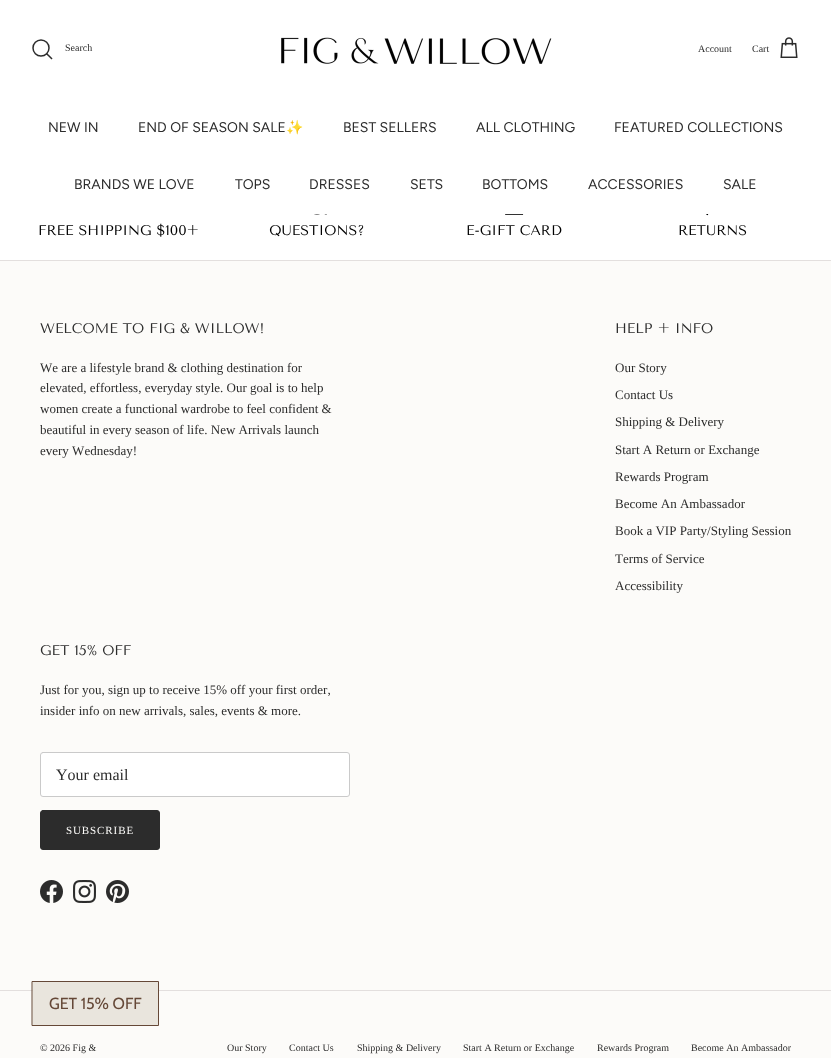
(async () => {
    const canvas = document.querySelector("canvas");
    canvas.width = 831;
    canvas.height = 1058;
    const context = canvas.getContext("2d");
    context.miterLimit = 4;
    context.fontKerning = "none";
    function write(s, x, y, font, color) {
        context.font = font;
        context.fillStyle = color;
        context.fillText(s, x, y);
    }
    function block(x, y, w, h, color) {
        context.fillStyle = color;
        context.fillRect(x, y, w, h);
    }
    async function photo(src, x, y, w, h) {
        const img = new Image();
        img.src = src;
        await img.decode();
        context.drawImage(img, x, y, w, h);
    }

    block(0, 0, 831, 1058, "rgb(255, 255, 255)");
    context.beginPath();
    context.arc(41, 48, 8, 0, Math.PI * 2);
    context.strokeStyle = "rgb(44, 44, 44)";
    context.lineWidth = 1.5;
    context.stroke();
    write("Search", 65, 51, "10px Liberation Serif", "rgb(44, 44, 44)");
    context.beginPath();
    context.moveTo(47, 54);
    context.lineTo(51.5, 58.5);
    context.lineCap = "square";
    context.stroke();
    await photo("media/1.png", 281, 37, 271, 28);
    write("Account", 698, 52, "10px Liberation Serif", "rgb(44, 44, 44)");
    write("Cart", 752, 52, "10px Liberation Serif", "rgb(44, 44, 44)");
    await photo("media/2.png", 780, 37, 18, 21);
    write("NEW IN", 48, 132, "14px Figtree", "rgb(44, 44, 44)");
    write("END OF SEASON SALE", 138, 132, "14px Figtree", "rgb(44, 44, 44)");
    write("✨", 286, 132, "14px Noto Color Emoji", "rgb(44, 44, 44)");
    write("BEST SELLERS", 343, 132, "14px Figtree", "rgb(44, 44, 44)");
    write("ALL CLOTHING", 476, 132, "14px Figtree", "rgb(44, 44, 44)");
    write("FEATURED COLLECTIONS", 614, 132, "14px Figtree", "rgb(44, 44, 44)");
    write("BRANDS WE LOVE", 74, 189, "14px Figtree", "rgb(44, 44, 44)");
    write("TOPS", 235, 189, "14px Figtree", "rgb(44, 44, 44)");
    write("DRESSES", 309, 189, "14px Figtree", "rgb(44, 44, 44)");
    write("SETS", 410, 189, "14px Figtree", "rgb(44, 44, 44)");
    write("BOTTOMS", 482, 189, "14px Figtree", "rgb(44, 44, 44)");
    write("ACCESSORIES", 588, 189, "14px Figtree", "rgb(44, 44, 44)");
    write("SALE", 723, 189, "14px Figtree", "rgb(44, 44, 44)");
    write("FREE SHIPPING $100+", 38, 235, "14.1px Tenor Sans", "rgb(0, 0, 0)");
    await photo("media/3.png", 314, 214, 13, 1);
    write("QUESTIONS?", 269, 235, "14.1px Tenor Sans", "rgb(0, 0, 0)");
    await photo("media/4.png", 505, 214, 19, 1);
    write("E-GIFT CARD", 466, 235, "14.1px Tenor Sans", "rgb(0, 0, 0)");
    await photo("media/5.png", 706, 214, 3, 2);
    write("RETURNS", 678, 235, "14.1px Tenor Sans", "rgb(0, 0, 0)");
    block(0, 261, 831, 797, "rgb(252, 251, 249)");
    block(0, 260, 831, 1, "rgb(227, 223, 222)");
    write("WELCOME TO FIG & WILLOW!", 40, 333, "14.1px Tenor Sans", "rgb(44, 44, 44)");
    write("We are a lifestyle brand & clothing destination for", 40, 372, "13px Liberation Serif", "rgb(44, 44, 44)");
    write("elevated, effortless, everyday style. Our goal is to help", 40, 392, "13px Liberation Serif", "rgb(44, 44, 44)");
    write("women create a functional wardrobe to feel confident &", 40, 413, "13px Liberation Serif", "rgb(44, 44, 44)");
    write("beautiful in every season of life. New Arrivals launch", 40, 434, "13px Liberation Serif", "rgb(44, 44, 44)");
    write("every Wednesday!", 40, 455, "13px Liberation Serif", "rgb(44, 44, 44)");
    write("HELP + INFO", 615, 333, "14.1px Tenor Sans", "rgb(44, 44, 44)");
    write("Our Story", 615, 372, "13px Liberation Serif", "rgb(44, 44, 44)");
    write("Contact Us", 615, 399, "13px Liberation Serif", "rgb(44, 44, 44)");
    write("Shipping & Delivery", 615, 426, "13px Liberation Serif", "rgb(44, 44, 44)");
    write("Start A Return or Exchange", 615, 454, "13px Liberation Serif", "rgb(44, 44, 44)");
    write("Rewards Program", 615, 481, "13px Liberation Serif", "rgb(44, 44, 44)");
    write("Become An Ambassador", 615, 508, "13px Liberation Serif", "rgb(44, 44, 44)");
    write("Book a VIP Party/Styling Session", 615, 535, "13px Liberation Serif", "rgb(44, 44, 44)");
    write("Terms of Service", 615, 563, "13px Liberation Serif", "rgb(44, 44, 44)");
    write("Accessibility", 615, 590, "13px Liberation Serif", "rgb(44, 44, 44)");
    write("GET 15% OFF", 40, 655, "14.1px Tenor Sans", "rgb(44, 44, 44)");
    write("Just for you, sign up to receive 15% off your first order,", 40, 694, "13px Liberation Serif", "rgb(44, 44, 44)");
    write("insider info on new arrivals, sales, events & more.", 40, 715, "13px Liberation Serif", "rgb(44, 44, 44)");
    context.fillStyle = "rgb(255, 255, 255)";
    context.beginPath();
    context.roundRect(40.5, 752.5, 309, 44, 2.5);
    context.fill();
    context.strokeStyle = "rgb(202, 202, 202)";
    context.lineWidth = 1;
    context.stroke();
    write("Your email", 56, 780, "16px Liberation Serif", "rgb(44, 44, 44)");
    context.beginPath();
    context.roundRect(40.5, 810.5, 119, 39, 2.5);
    context.fill();
    context.strokeStyle = "rgb(44, 44, 44)";
    context.stroke();
    context.letterSpacing = "0.9px";
    write("SUBSCRIBE", 66, 834, "11px Liberation Serif", "rgb(252, 251, 249)");
    await photo("media/6.png", 40, 880, 23, 23);
    await photo("media/7.png", 73, 880, 23, 23);
    await photo("media/8.png", 106, 880, 23, 23);
    block(0, 990, 831, 1, "rgb(227, 223, 222)");
    context.letterSpacing = "0px";
    write("© 2026 Fig &", 40, 1051, "10px Liberation Serif", "rgb(44, 44, 44)");
    write("Our Story", 227, 1051, "10px Liberation Serif", "rgb(44, 44, 44)");
    write("Contact Us", 289, 1051, "10px Liberation Serif", "rgb(44, 44, 44)");
    write("Shipping & Delivery", 357, 1051, "10px Liberation Serif", "rgb(44, 44, 44)");
    write("Start A Return or Exchange", 463, 1051, "10px Liberation Serif", "rgb(44, 44, 44)");
    write("Rewards Program", 597, 1051, "10px Liberation Serif", "rgb(44, 44, 44)");
    write("Become An Ambassador", 691, 1051, "10px Liberation Serif", "rgb(44, 44, 44)");
    context.fillStyle = "rgb(233, 229, 221)";
    context.beginPath();
    context.rect(32.5, 981.5, 126, 44);
    context.fill();
    context.strokeStyle = "rgb(101, 72, 55)";
    context.stroke();
    write("GET 15% OFF", 49, 1009, "16px Cabin", "rgb(101, 72, 55)");
})();
